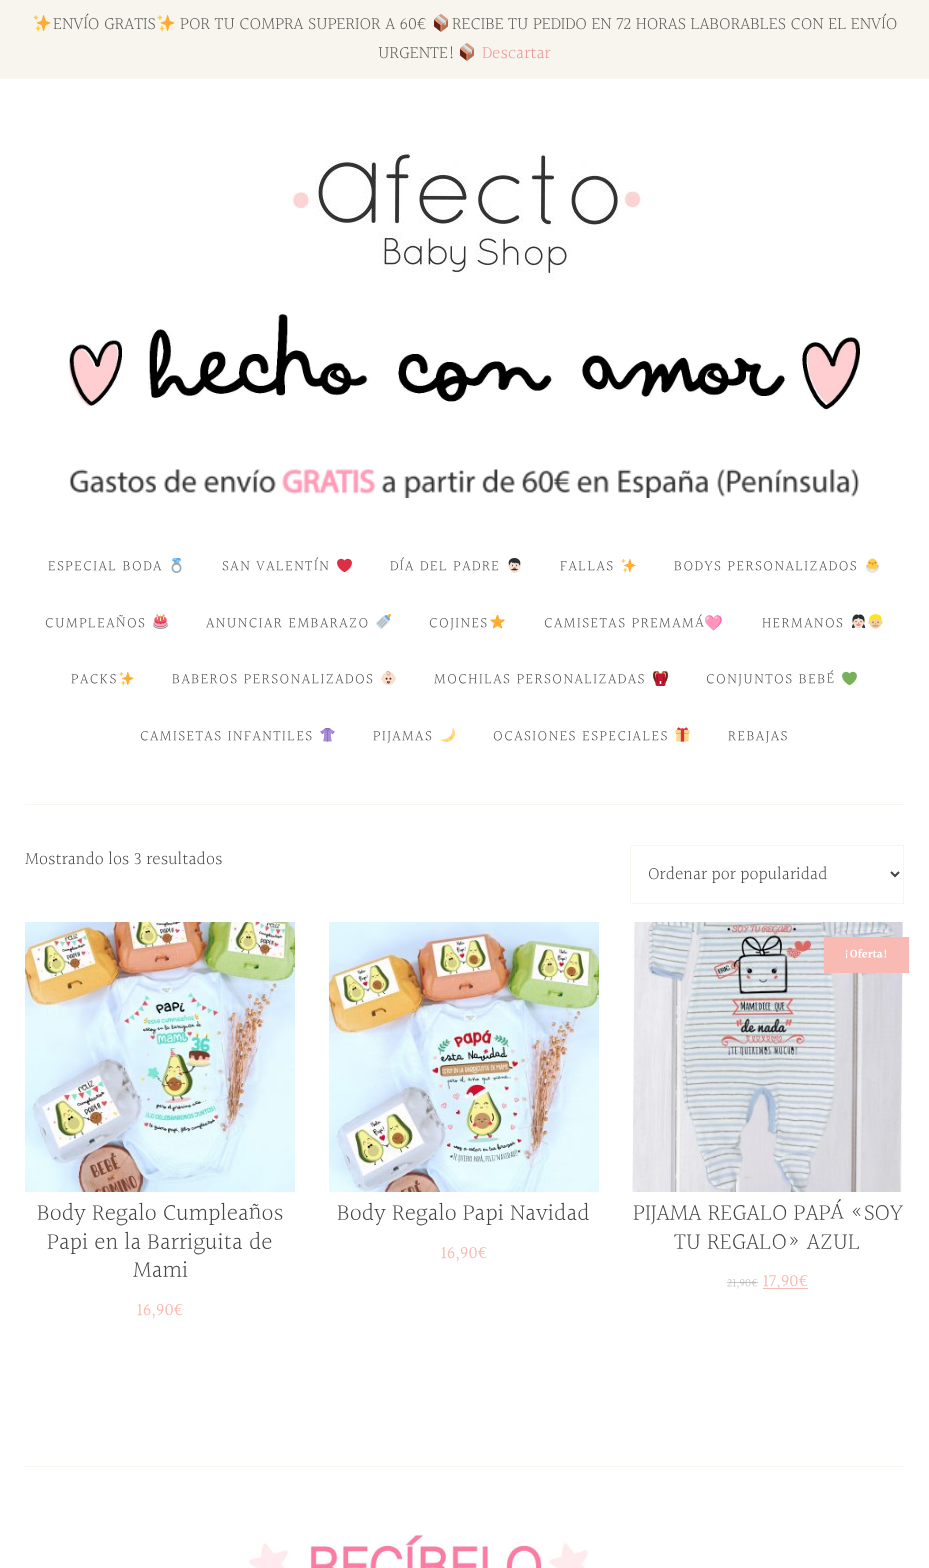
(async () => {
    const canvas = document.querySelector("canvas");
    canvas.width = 929;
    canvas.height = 1568;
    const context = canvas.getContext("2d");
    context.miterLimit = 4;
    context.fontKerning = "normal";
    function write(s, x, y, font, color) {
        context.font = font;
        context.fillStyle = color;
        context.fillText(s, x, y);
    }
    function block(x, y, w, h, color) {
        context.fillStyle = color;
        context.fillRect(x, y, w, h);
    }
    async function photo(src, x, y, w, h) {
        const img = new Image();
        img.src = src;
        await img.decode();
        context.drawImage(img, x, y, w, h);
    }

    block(0, 0, 929, 1568, "rgb(255, 255, 255)");
    block(0, 0, 929, 79, "rgb(247, 245, 238)");
    await photo("media/1.png", 33, 15, 18, 17);
    write("ENVÍO GRATIS", 53, 30, "300 18px Halant", "rgb(85, 85, 85)");
    await photo("media/1.png", 157, 15, 18, 17);
    write("POR TU COMPRA SUPERIOR A 60€", 180, 30, "300 18px Halant", "rgb(85, 85, 85)");
    await photo("media/2.png", 434, 14, 14, 18);
    write("RECIBE TU PEDIDO EN 72 HORAS LABORABLES CON EL ENVÍO", 452, 30, "300 18px Halant", "rgb(85, 85, 85)");
    write("URGENTE!", 378, 59, "300 18px Halant", "rgb(85, 85, 85)");
    await photo("media/2.png", 460, 43, 14, 18);
    write("Descartar", 482, 59, "300 18px Halant", "rgb(237, 148, 148)");
    await photo("media/3.png", 291, 152, 352, 128);
    await photo("media/4.png", 69, 312, 791, 98);
    await photo("media/5.png", 69, 469, 790, 29);
    context.letterSpacing = "1.5px";
    write("ESPECIAL BODA", 48, 571, "300 15px Halant", "rgb(68, 68, 68)");
    await photo("media/6.png", 171, 558, 11, 15);
    write("SAN VALENTÍN", 222, 571, "300 15px Halant", "rgb(68, 68, 68)");
    await photo("media/7.png", 337, 558, 15, 15);
    write("DÍA DEL PADRE", 390, 571, "300 15px Halant", "rgb(68, 68, 68)");
    await photo("media/8.png", 508, 558, 13, 15);
    write("FALLAS", 560, 571, "300 15px Halant", "rgb(68, 68, 68)");
    await photo("media/9.png", 621, 558, 15, 15);
    write("BODYS PERSONALIZADOS", 674, 571, "300 15px Halant", "rgb(68, 68, 68)");
    await photo("media/10.png", 866, 558, 13, 15);
    write("CUMPLEAÑOS", 45, 628, "300 15px Halant", "rgb(68, 68, 68)");
    await photo("media/11.png", 153, 614, 15, 15);
    write("ANUNCIAR EMBARAZO", 206, 628, "300 15px Halant", "rgb(68, 68, 68)");
    await photo("media/12.png", 376, 614, 15, 15);
    write("COJINES", 429, 628, "300 15px Halant", "rgb(68, 68, 68)");
    await photo("media/13.png", 490, 614, 15, 15);
    write("CAMISETAS PREMAMÁ", 544, 628, "300 15px Halant", "rgb(68, 68, 68)");
    write("🩷", 704, 628, "15px Noto Color Emoji", "rgb(68, 68, 68)");
    write("HERMANOS", 762, 628, "300 15px Halant", "rgb(68, 68, 68)");
    await photo("media/14.png", 851, 614, 15, 15);
    await photo("media/15.png", 868, 614, 15, 15);
    write("PACKS", 71, 684, "300 15px Halant", "rgb(68, 68, 68)");
    await photo("media/9.png", 119, 671, 15, 15);
    write("BABEROS PERSONALIZADOS", 172, 684, "300 15px Halant", "rgb(68, 68, 68)");
    await photo("media/16.png", 381, 671, 15, 15);
    write("MOCHILAS PERSONALIZADAS", 434, 684, "300 15px Halant", "rgb(68, 68, 68)");
    await photo("media/17.png", 653, 671, 15, 15);
    write("CONJUNTOS BEBÉ", 706, 684, "300 15px Halant", "rgb(68, 68, 68)");
    await photo("media/18.png", 842, 671, 15, 15);
    write("CAMISETAS INFANTILES", 140, 741, "300 15px Halant", "rgb(68, 68, 68)");
    await photo("media/19.png", 320, 728, 15, 14);
    write("PIJAMAS", 373, 741, "300 15px Halant", "rgb(68, 68, 68)");
    await photo("media/20.png", 440, 727, 15, 15);
    write("OCASIONES ESPECIALES", 493, 741, "300 15px Halant", "rgb(68, 68, 68)");
    await photo("media/21.png", 675, 727, 15, 15);
    write("REBAJAS", 728, 741, "300 15px Halant", "rgb(68, 68, 68)");
    block(25, 804, 879, 1, "rgb(247, 245, 238)");
    context.letterSpacing = "0px";
    write("Mostrando los 3 resultados", 25, 865, "300 18px Halant", "rgb(68, 68, 68)");
    context.strokeStyle = "rgb(247, 245, 238)";
    context.strokeRect(630.5, 845.5, 273, 58);
    context.beginPath();
    context.moveTo(891, 872);
    context.lineTo(895, 876);
    context.lineTo(899, 872);
    context.strokeStyle = "rgb(68, 68, 68)";
    context.lineWidth = 2;
    context.stroke();
    write("Ordenar por popularidad", 648, 880, "300 18px Halant", "rgb(68, 68, 68)");
    await photo("media/22.png", 25, 922, 270, 270);
    write("Body Regalo Cumpleaños", 37, 1221, "300 24px Halant", "rgb(68, 68, 68)");
    write("Papi en la Barriguita de", 47, 1250, "300 24px Halant", "rgb(68, 68, 68)");
    write("Mami", 133, 1278, "300 24px Halant", "rgb(68, 68, 68)");
    write("16,90€", 137, 1316, "18px Halant", "rgb(249, 186, 179)");
    await photo("media/23.png", 329, 922, 270, 270);
    write("Body Regalo Papi Navidad", 337, 1221, "300 24px Halant", "rgb(68, 68, 68)");
    write("16,90€", 441, 1259, "18px Halant", "rgb(249, 186, 179)");
    await photo("media/24.png", 632, 922, 271, 270);
    block(824, 937, 85, 36, "rgb(249, 186, 179)");
    write("¡Oferta!", 844, 958, "600 12px Halant", "rgb(255, 255, 255)");
    write("PIJAMA REGALO PAPÁ «SOY", 633, 1221, "300 24px Halant", "rgb(68, 68, 68)");
    write("TU REGALO» AZUL", 674, 1250, "300 24px Halant", "rgb(68, 68, 68)");
    write("21,90€", 727, 1287, "12px Halant", "rgb(200, 200, 200)");
    block(727, 1282, 24, 1, "rgba(145, 145, 145, 0.5)");
    block(751, 1282, 7, 1, "rgba(145, 145, 145, 0.5)");
    block(763, 1288, 45, 1, "rgb(249, 186, 179)");
    write("17,90€", 763, 1287, "18px Halant", "rgb(249, 186, 179)");
    block(25, 1466, 879, 1, "rgb(247, 245, 238)");
    await photo("media/25.png", 249, 1534, 339, 34);
})();
